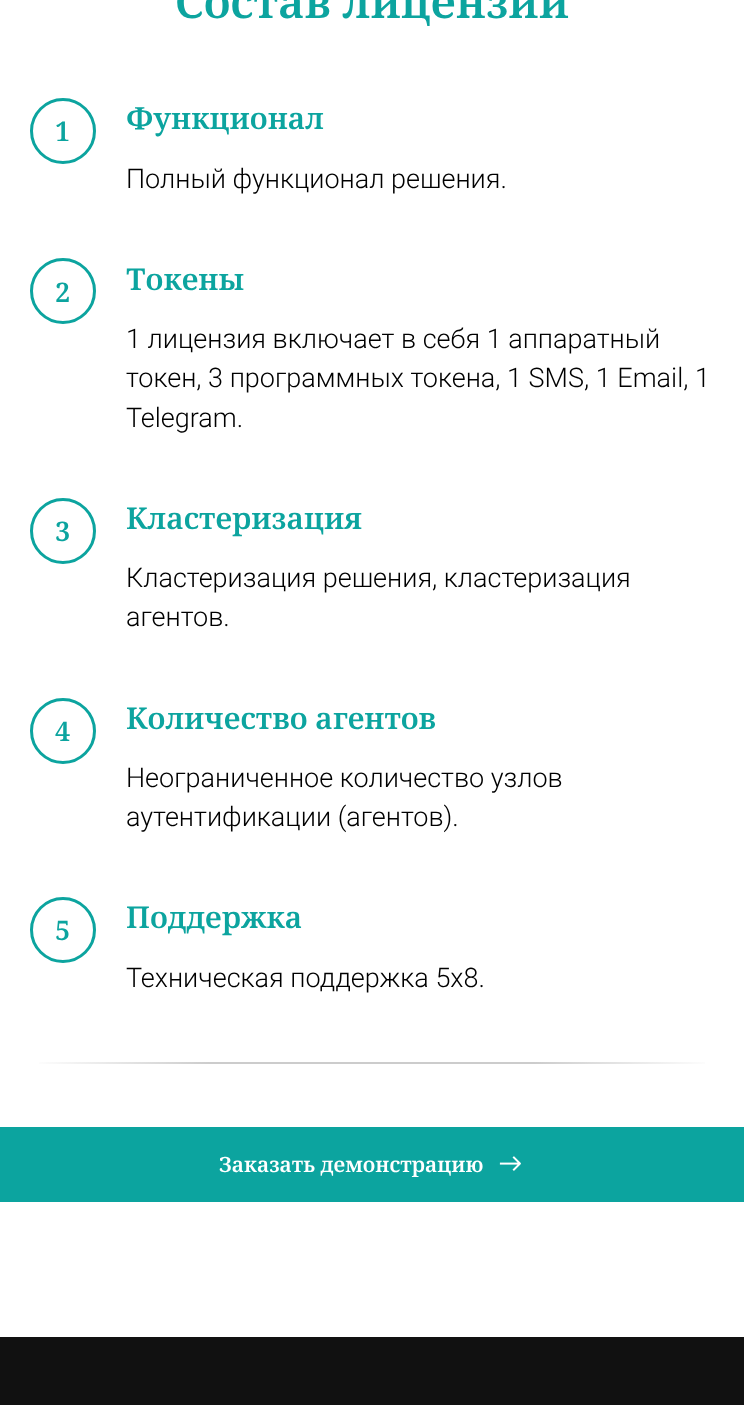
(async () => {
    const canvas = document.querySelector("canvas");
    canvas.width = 744;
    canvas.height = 1405;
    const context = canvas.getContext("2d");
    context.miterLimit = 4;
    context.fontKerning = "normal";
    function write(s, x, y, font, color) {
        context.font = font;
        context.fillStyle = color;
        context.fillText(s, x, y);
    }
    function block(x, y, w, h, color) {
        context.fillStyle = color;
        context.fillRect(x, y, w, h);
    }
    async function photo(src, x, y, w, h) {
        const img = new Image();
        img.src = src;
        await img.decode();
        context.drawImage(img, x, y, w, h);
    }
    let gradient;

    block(0, 0, 744, 1405, "rgb(255, 255, 255)");
    write("Состав лицензии", 175, 18, "600 45px Noto Serif", "rgb(12, 164, 159)");
    context.beginPath();
    context.arc(63, 131, 31.5, 0, Math.PI * 2);
    context.strokeStyle = "rgb(12, 164, 159)";
    context.lineWidth = 3;
    context.stroke();
    write("1", 55, 141, "600 27px Noto Serif", "rgb(12, 164, 159)");
    write("Функционал", 126, 129, "600 30px Noto Serif", "rgb(12, 164, 159)");
    write("Полный функционал решения.", 126, 188, "300 27px Roboto", "rgb(0, 0, 0)");
    context.beginPath();
    context.arc(63, 291, 31.5, 0, Math.PI * 2);
    context.stroke();
    write("2", 55, 302, "600 27px Noto Serif", "rgb(12, 164, 159)");
    write("Токены", 126, 290, "600 30px Noto Serif", "rgb(12, 164, 159)");
    write("1 лицензия включает в себя 1 аппаратный", 126, 348, "300 27px Roboto", "rgb(0, 0, 0)");
    write("токен, 3 программных токена, 1 SMS, 1 Email, 1", 126, 387, "300 27px Roboto", "rgb(0, 0, 0)");
    write("Telegram.", 126, 427, "300 27px Roboto", "rgb(0, 0, 0)");
    context.beginPath();
    context.arc(63, 531, 31.5, 0, Math.PI * 2);
    context.stroke();
    write("3", 55, 541, "600 27px Noto Serif", "rgb(12, 164, 159)");
    write("Кластеризация", 126, 529, "600 30px Noto Serif", "rgb(12, 164, 159)");
    write("Кластеризация решения, кластеризация", 126, 587, "300 27px Roboto", "rgb(0, 0, 0)");
    write("агентов.", 126, 626, "300 27px Roboto", "rgb(0, 0, 0)");
    context.beginPath();
    context.arc(63, 731, 31.5, 0, Math.PI * 2);
    context.stroke();
    write("4", 55, 741, "600 27px Noto Serif", "rgb(12, 164, 159)");
    write("Количество агентов", 126, 729, "600 30px Noto Serif", "rgb(12, 164, 159)");
    write("Неограниченное количество узлов", 126, 787, "300 27px Roboto", "rgb(0, 0, 0)");
    write("аутентификации (агентов).", 126, 826, "300 27px Roboto", "rgb(0, 0, 0)");
    context.beginPath();
    context.arc(63, 930, 31.5, 0, Math.PI * 2);
    context.stroke();
    write("5", 55, 940, "600 27px Noto Serif", "rgb(12, 164, 159)");
    write("Поддержка", 126, 928, "600 30px Noto Serif", "rgb(12, 164, 159)");
    write("Техническая поддержка 5х8.", 126, 987, "300 27px Roboto", "rgb(0, 0, 0)");
    gradient = context.createLinearGradient(210, 1063, 30, 1063);
    gradient.addColorStop(0, "rgb(204, 204, 204)");
    gradient.addColorStop(1, "rgb(255, 255, 255)");
    context.fillStyle = gradient;
    context.fillRect(39, 1062, 171, 2);
    block(210, 1062, 324, 2, "rgb(204, 204, 204)");
    gradient = context.createLinearGradient(534, 1063, 714, 1063);
    gradient.addColorStop(0, "rgb(204, 204, 204)");
    gradient.addColorStop(1, "rgb(255, 255, 255)");
    context.fillStyle = gradient;
    context.fillRect(534, 1062, 171, 2);
    block(0, 1127, 744, 75, "rgb(12, 164, 159)");
    write("Заказать демонстрацию", 219, 1172, "600 21px Noto Serif", "rgb(255, 255, 255)");
    await photo("media/1.png", 499, 1156, 22, 15);
    block(0, 1337, 744, 68, "rgb(17, 17, 17)");
})();
